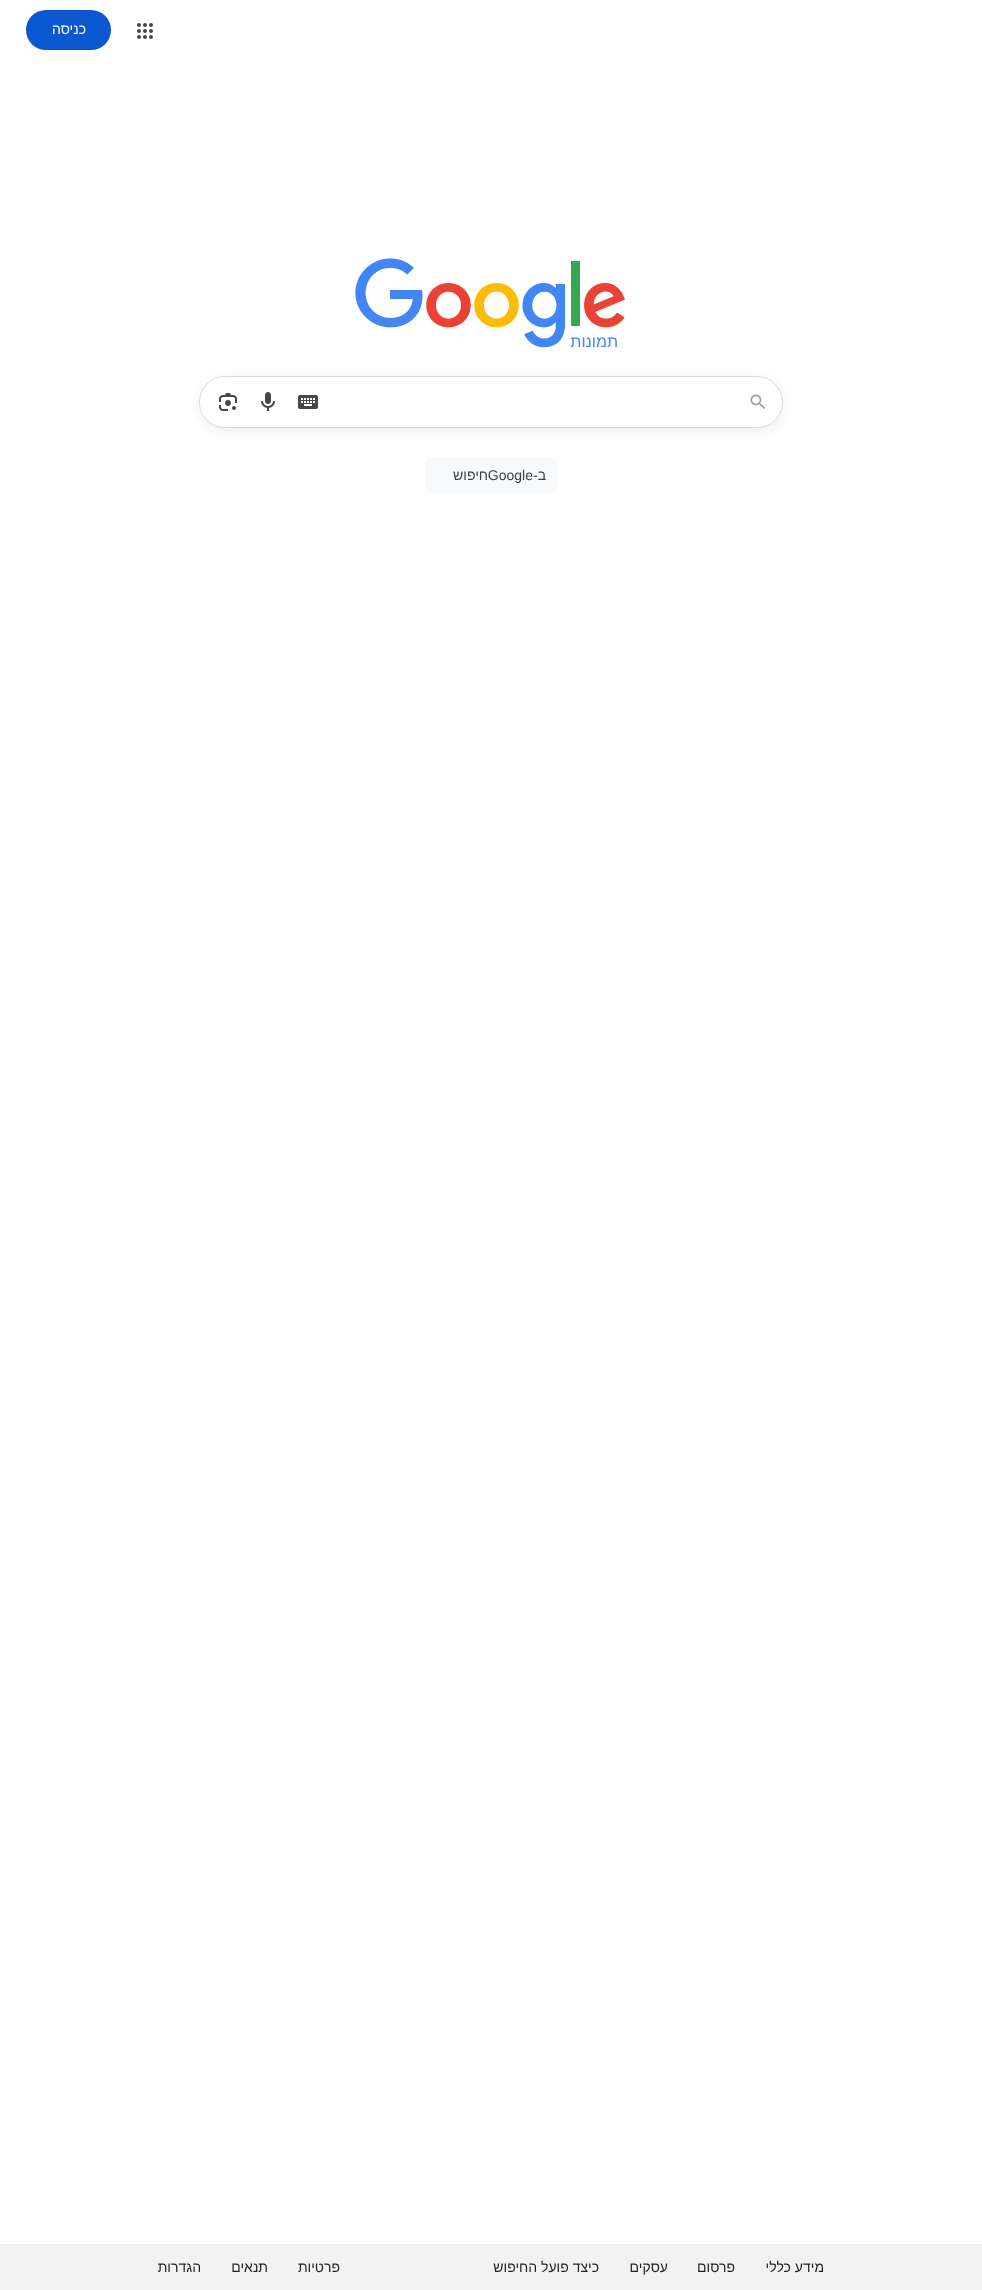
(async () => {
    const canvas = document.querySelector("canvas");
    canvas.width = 982;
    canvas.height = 2290;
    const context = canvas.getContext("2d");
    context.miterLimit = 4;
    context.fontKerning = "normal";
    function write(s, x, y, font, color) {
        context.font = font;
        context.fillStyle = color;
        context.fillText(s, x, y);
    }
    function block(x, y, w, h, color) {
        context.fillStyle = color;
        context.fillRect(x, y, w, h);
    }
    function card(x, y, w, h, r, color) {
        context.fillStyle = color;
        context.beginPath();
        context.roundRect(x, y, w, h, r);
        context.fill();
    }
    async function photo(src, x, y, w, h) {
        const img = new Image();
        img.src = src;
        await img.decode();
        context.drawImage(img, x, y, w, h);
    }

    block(0, 0, 982, 2290, "rgb(255, 255, 255)");
    await photo("media/1.png", 137, 23, 16, 16);
    card(26, 10, 85, 40, 20, "rgb(11, 87, 208)");
    context.direction = "rtl";
    write("כניסה", 86, 34, "14px Liberation Sans", "rgb(255, 255, 255)");
    await photo("media/2.png", 355, 258, 270, 90);
    write("תמונות", 618, 347, "16px Liberation Sans", "rgb(66, 133, 244)");
    context.fillStyle = "rgba(31, 31, 31, 0.08)";
    context.filter = "blur(5px)";
    context.beginPath();
    context.roundRect(199, 379, 584, 52, 26);
    context.fill();
    context.filter = "none";
    context.fillStyle = "rgb(255, 255, 255)";
    context.beginPath();
    context.roundRect(199.5, 376.5, 583, 51, 25.5);
    context.fill();
    context.strokeStyle = "rgb(218, 220, 224)";
    context.stroke();
    await photo("media/3.png", 750, 394, 15, 15);
    await photo("media/4.png", 298, 395, 20, 14);
    await photo("media/5.png", 261, 392, 14, 19);
    await photo("media/6.png", 219, 393, 18, 18);
    card(425, 457, 132, 36, 8, "rgb(248, 249, 250)");
    write("ב-Google", 546, 480, "14px Liberation Sans", "rgb(60, 64, 67)");
    write("חיפוש", 488, 480, "14px Liberation Sans", "rgb(60, 64, 67)");
    block(0, 2244, 982, 46, "rgb(242, 242, 242)");
    write("מידע כללי", 824, 2272, "14px Liberation Sans", "rgb(31, 31, 31)");
    write("פרסום", 735, 2272, "14px Liberation Sans", "rgb(31, 31, 31)");
    write("עסקים", 668, 2272, "14px Liberation Sans", "rgb(31, 31, 31)");
    write("כיצד פועל החיפוש", 599, 2272, "14px Liberation Sans", "rgb(31, 31, 31)");
    write("פרטיות", 340, 2272, "14px Liberation Sans", "rgb(31, 31, 31)");
    write("תנאים", 268, 2272, "14px Liberation Sans", "rgb(31, 31, 31)");
    write("הגדרות", 201, 2272, "14px Liberation Sans", "rgb(31, 31, 31)");
})();
